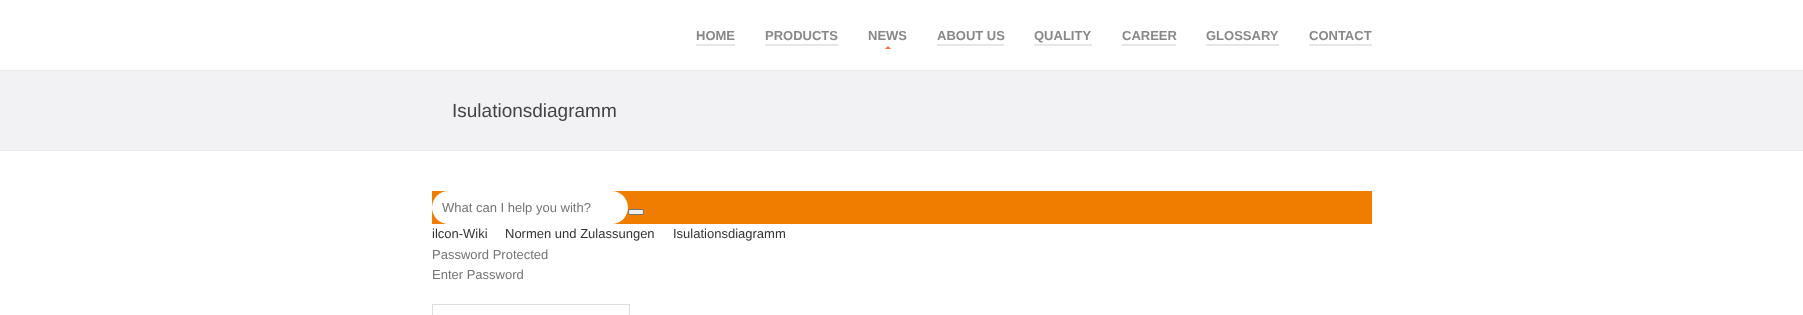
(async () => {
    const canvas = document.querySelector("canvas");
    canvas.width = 1803;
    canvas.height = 315;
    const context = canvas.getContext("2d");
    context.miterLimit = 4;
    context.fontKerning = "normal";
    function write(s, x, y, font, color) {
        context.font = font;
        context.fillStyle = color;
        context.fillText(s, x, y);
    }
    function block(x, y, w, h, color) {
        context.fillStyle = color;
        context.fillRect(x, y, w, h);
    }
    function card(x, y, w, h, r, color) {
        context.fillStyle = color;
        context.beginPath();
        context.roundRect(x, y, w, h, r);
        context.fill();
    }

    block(0, 0, 1803, 315, "rgb(255, 255, 255)");
    block(0, 70, 1803, 1, "rgb(235, 235, 235)");
    block(696, 44, 39, 2, "rgb(231, 231, 231)");
    write("HOME", 696, 40, "bold 13px Liberation Sans", "rgb(136, 136, 136)");
    block(765, 44, 73, 2, "rgb(231, 231, 231)");
    write("PRODUCTS", 765, 40, "bold 13px Liberation Sans", "rgb(136, 136, 136)");
    write("NEWS", 868, 40, "bold 13px Liberation Sans", "rgb(136, 136, 136)");
    context.fillStyle = "rgb(248, 108, 53)";
    context.beginPath();
    context.moveTo(891, 49);
    context.lineTo(885, 49);
    context.lineTo(888, 46);
    context.closePath();
    context.fill();
    block(937, 44, 67, 2, "rgb(231, 231, 231)");
    write("ABOUT US", 937, 40, "bold 13px Liberation Sans", "rgb(136, 136, 136)");
    block(1034, 44, 58, 2, "rgb(231, 231, 231)");
    write("QUALITY", 1034, 40, "bold 13px Liberation Sans", "rgb(136, 136, 136)");
    block(1122, 44, 54, 2, "rgb(231, 231, 231)");
    write("CAREER", 1122, 40, "bold 13px Liberation Sans", "rgb(136, 136, 136)");
    block(1206, 44, 73, 2, "rgb(231, 231, 231)");
    write("GLOSSARY", 1206, 40, "bold 13px Liberation Sans", "rgb(136, 136, 136)");
    block(1309, 44, 63, 2, "rgb(231, 231, 231)");
    write("CONTACT", 1309, 40, "bold 13px Liberation Sans", "rgb(136, 136, 136)");
    block(0, 71, 1803, 79, "rgb(242, 242, 244)");
    block(0, 150, 1803, 1, "rgb(235, 235, 235)");
    write("Isulationsdiagramm", 452, 117, "19px Liberation Sans", "rgb(68, 68, 68)");
    block(432, 191, 940, 33, "rgb(240, 125, 0)");
    card(432, 191, 196, 33, 16.5, "rgb(255, 255, 255)");
    write("What can I help you with?", 442, 212, "13px Liberation Sans", "rgb(117, 117, 117)");
    context.fillStyle = "rgb(239, 239, 239)";
    context.beginPath();
    context.roundRect(628.5, 209.5, 15, 5, 1.5);
    context.fill();
    context.strokeStyle = "rgb(118, 118, 118)";
    context.stroke();
    write("ilcon-Wiki", 432, 238, "13px Liberation Sans", "rgb(52, 52, 52)");
    write("Normen und Zulassungen", 505, 238, "13px Liberation Sans", "rgb(52, 52, 52)");
    write("Isulationsdiagramm", 673, 238, "13px Liberation Sans", "rgb(52, 52, 52)");
    write("Password Protected", 432, 259, "13px Liberation Sans", "rgb(117, 117, 117)");
    write("Enter Password", 432, 279, "13px Liberation Sans", "rgb(117, 117, 117)");
    context.strokeStyle = "rgb(221, 221, 221)";
    context.strokeRect(432.5, 304.5, 197, 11);
})();
